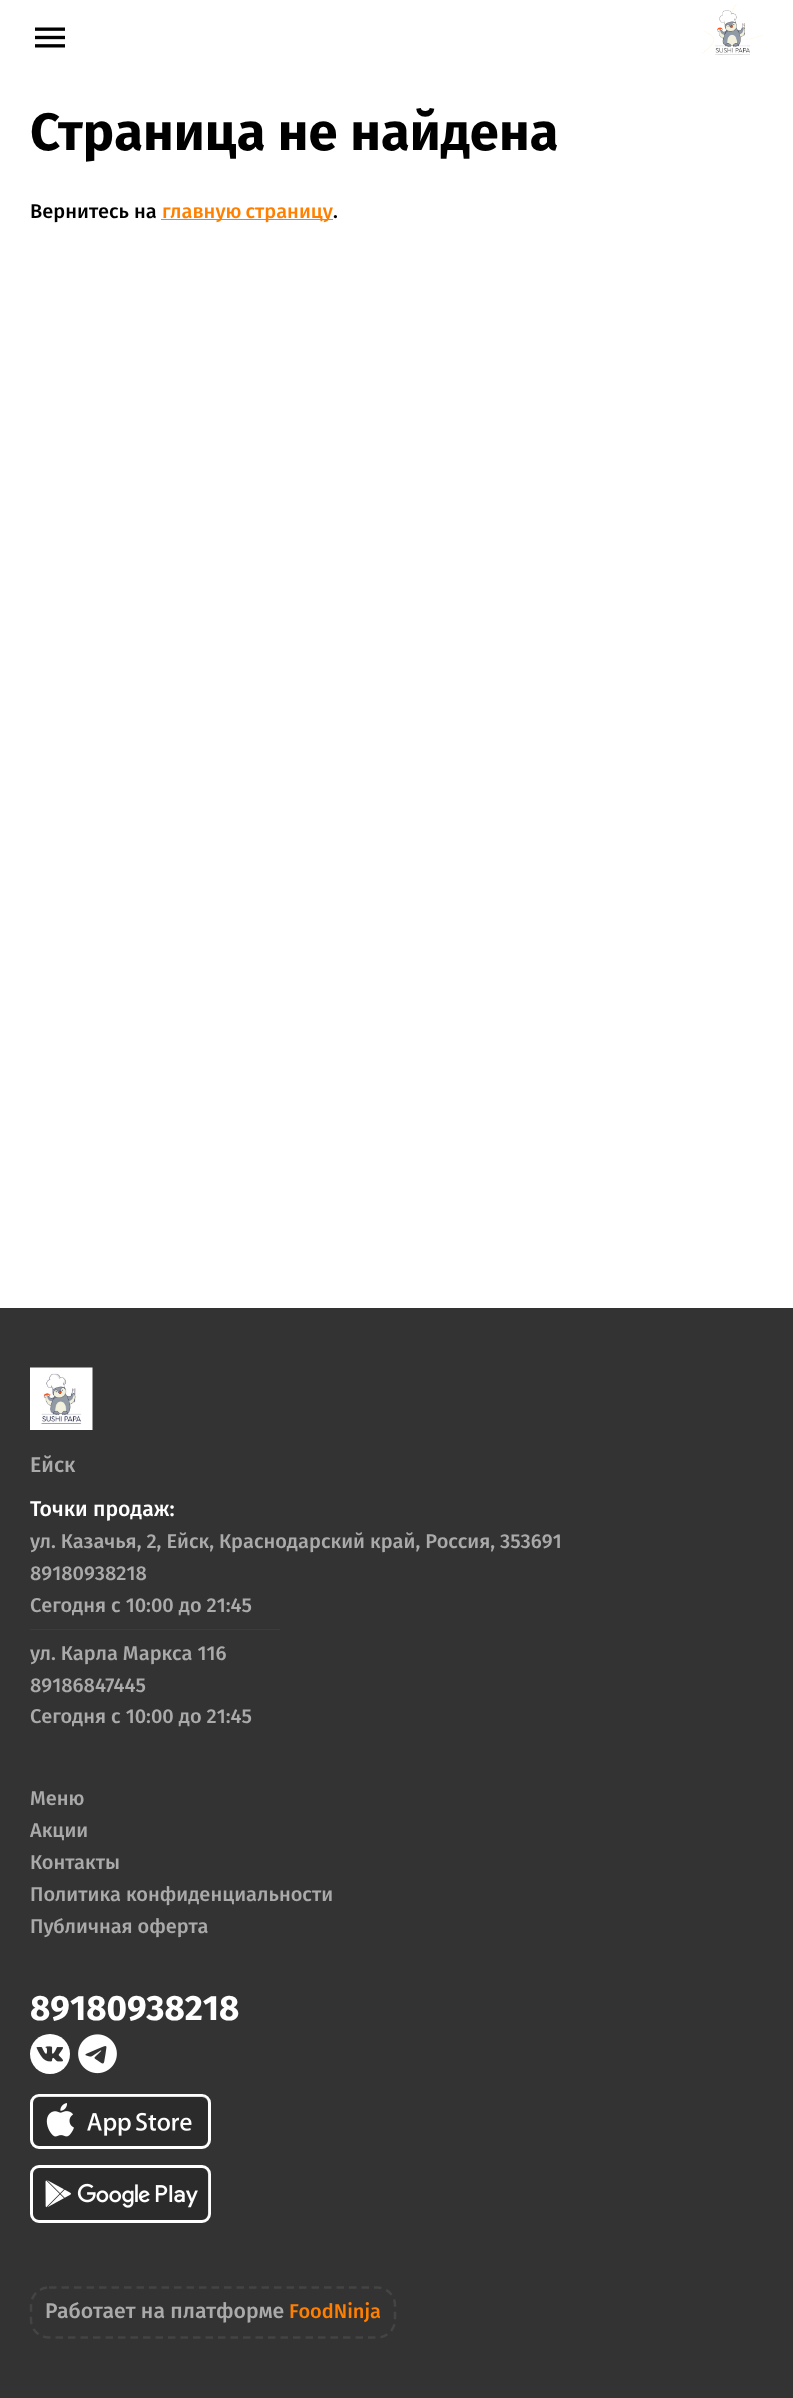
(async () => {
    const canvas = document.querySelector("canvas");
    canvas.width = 793;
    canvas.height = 2398;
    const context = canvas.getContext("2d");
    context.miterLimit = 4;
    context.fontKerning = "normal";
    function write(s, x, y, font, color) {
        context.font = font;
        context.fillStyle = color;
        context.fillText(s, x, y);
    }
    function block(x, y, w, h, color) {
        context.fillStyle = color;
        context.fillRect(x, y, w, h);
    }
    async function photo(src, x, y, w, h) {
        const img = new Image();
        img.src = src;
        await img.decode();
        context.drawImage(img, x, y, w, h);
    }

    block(0, 0, 793, 2398, "rgb(255, 255, 255)");
    await photo("media/1.png", 35, 27, 30, 21);
    await photo("media/2.png", 701, 4, 62, 51);
    write("Страница не найдена", 30, 150, "bold 52.5px Fira Sans", "rgb(0, 0, 0)");
    write("Вернитесь на", 30, 218, "500 20px Fira Sans", "rgb(0, 0, 0)");
    block(161, 219, 172, 1, "rgb(255, 128, 0)");
    context.wordSpacing = "-1px";
    write("главную страницу", 162, 218, "500 20px Fira Sans", "rgb(255, 128, 0)");
    context.wordSpacing = "0px";
    write(".", 333, 218, "500 20px Fira Sans", "rgb(0, 0, 0)");
    block(0, 1308, 793, 1090, "rgb(51, 51, 51)");
    await photo("media/3.png", 30, 1367, 63, 63);
    write("Ейск", 30, 1472, "500 21.25px Fira Sans", "rgb(170, 170, 170)");
    write("Точки продаж:", 30, 1516, "500 21.25px Fira Sans", "rgb(255, 255, 255)");
    write("ул. Казачья, 2, Ейск, Краснодарский край, Россия, 353691", 30, 1548, "500 20px Fira Sans", "rgb(170, 170, 170)");
    write("89180938218", 30, 1580, "500 20px Fira Sans", "rgb(170, 170, 170)");
    write("Сегодня с 10:00 до 21:45", 30, 1612, "500 20px Fira Sans", "rgb(170, 170, 170)");
    block(30, 1629, 250, 1, "rgb(60, 59, 59)");
    write("ул. Карла Маркса 116", 30, 1660, "500 20px Fira Sans", "rgb(170, 170, 170)");
    write("89186847445", 30, 1692, "500 20px Fira Sans", "rgb(170, 170, 170)");
    write("Сегодня с 10:00 до 21:45", 30, 1723, "500 20px Fira Sans", "rgb(170, 170, 170)");
    write("Меню", 30, 1805, "500 20px Fira Sans", "rgb(170, 170, 170)");
    write("Акции", 30, 1837, "500 20px Fira Sans", "rgb(170, 170, 170)");
    write("Контакты", 30, 1869, "500 20px Fira Sans", "rgb(170, 170, 170)");
    write("Политика конфиденциальности", 30, 1901, "500 20px Fira Sans", "rgb(170, 170, 170)");
    write("Публичная оферта", 30, 1933, "500 20px Fira Sans", "rgb(170, 170, 170)");
    write("89180938218", 30, 2020, "bold 35px Fira Sans", "rgb(255, 255, 255)");
    context.beginPath();
    context.arc(50, 2054, 20, 0, Math.PI * 2);
    context.fill();
    await photo("media/4.png", 36, 2046, 27, 16);
    await photo("media/5.png", 78, 2034, 39, 40);
    context.beginPath();
    context.roundRect(31.5, 2095.5, 178, 52, 7.5);
    context.strokeStyle = "rgb(255, 255, 255)";
    context.lineWidth = 3;
    context.stroke();
    await photo("media/6.png", 33, 2096, 175, 50);
    context.beginPath();
    context.roundRect(31.5, 2166.5, 178, 55, 7.5);
    context.stroke();
    await photo("media/7.png", 33, 2168, 176, 52);
    context.beginPath();
    context.moveTo(49, 2287.5);
    context.lineTo(377.5, 2287.5);
    context.bezierCurveTo(387, 2287.5, 395, 2295.5, 395, 2305);
    context.lineTo(395, 2320);
    context.bezierCurveTo(395, 2329.5, 387, 2337.5, 377.5, 2337.5);
    context.lineTo(49, 2337.5);
    context.bezierCurveTo(39, 2337.5, 31, 2329.5, 31, 2320);
    context.lineTo(31, 2305);
    context.bezierCurveTo(31, 2295.5, 39, 2287.5, 49, 2287.5);
    context.closePath();
    context.strokeStyle = "rgb(68, 68, 68)";
    context.lineWidth = 2.5;
    context.setLineDash([7.5, 5]);
    context.stroke();
    write("Работает на платформе", 45, 2318, "500 21.25px Fira Sans", "rgb(170, 170, 170)");
    write("FoodNinja", 289, 2318, "500 20px Fira Sans", "rgb(255, 128, 0)");
})();
